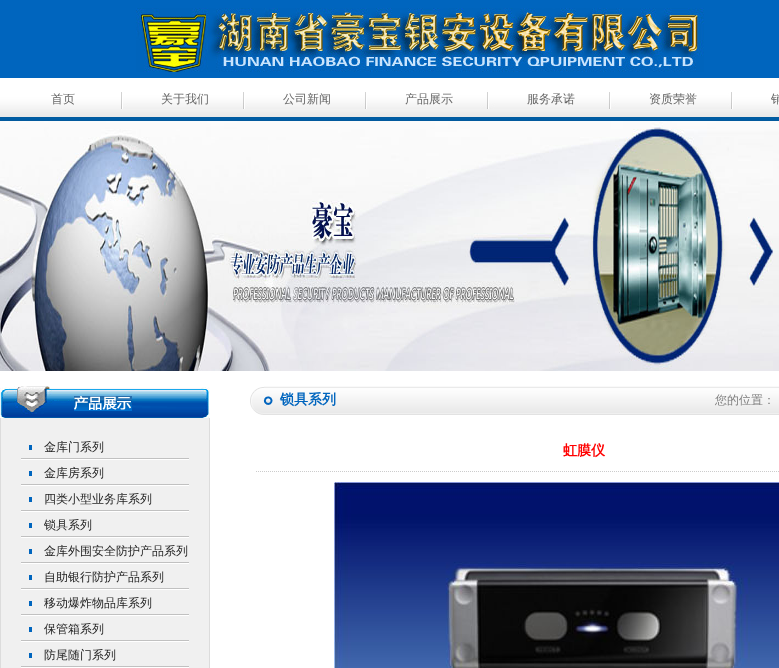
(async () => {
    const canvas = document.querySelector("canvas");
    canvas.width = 779;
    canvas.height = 668;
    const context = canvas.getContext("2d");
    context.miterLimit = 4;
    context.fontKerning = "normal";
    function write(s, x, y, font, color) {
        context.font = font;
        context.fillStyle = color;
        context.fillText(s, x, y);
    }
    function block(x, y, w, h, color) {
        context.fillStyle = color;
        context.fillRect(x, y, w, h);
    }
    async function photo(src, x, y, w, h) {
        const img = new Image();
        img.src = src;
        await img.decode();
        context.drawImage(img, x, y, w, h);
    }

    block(0, 0, 779, 668, "rgb(255, 255, 255)");
    await photo("media/1.png", 0, 0, 779, 121);
    await photo("media/2.png", 136, 8, 568, 64);
    await photo("media/3.png", 121, 92, 612, 17);
    write("首页", 51, 103, "500 12px WenQuanYi Zen Hei", "rgb(102, 102, 102)");
    write("关于我们", 161, 103, "500 12px WenQuanYi Zen Hei", "rgb(102, 102, 102)");
    write("公司新闻", 283, 103, "500 12px WenQuanYi Zen Hei", "rgb(102, 102, 102)");
    write("产品展示", 405, 103, "500 12px WenQuanYi Zen Hei", "rgb(102, 102, 102)");
    write("服务承诺", 527, 103, "500 12px WenQuanYi Zen Hei", "rgb(102, 102, 102)");
    write("资质荣誉", 649, 103, "500 12px WenQuanYi Zen Hei", "rgb(102, 102, 102)");
    write("销", 771, 103, "500 12px WenQuanYi Zen Hei", "rgb(102, 102, 102)");
    await photo("media/4.png", 0, 121, 779, 250);
    await photo("media/5.png", 250, 386, 529, 29);
    write("锁具系列", 280, 404, "bold 14px WenQuanYi Zen Hei", "rgb(0, 101, 190)");
    write("您的位置：", 715, 404, "500 12px WenQuanYi Zen Hei", "rgb(126, 126, 126)");
    context.beginPath();
    context.moveTo(256, 471.5);
    context.lineTo(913, 471.5);
    context.strokeStyle = "rgb(204, 204, 204)";
    context.setLineDash([1, 1]);
    context.stroke();
    write("虹膜仪", 563, 455, "bold 14px WenQuanYi Zen Hei", "rgb(255, 0, 0)");
    await photo("media/6.png", 334, 482, 445, 186);
    await photo("media/7.png", 0, 386, 210, 32);
    await photo("media/8.png", 74, 396, 58, 15);
    block(1, 418, 208, 250, "rgb(240, 240, 240)");
    block(209, 418, 1, 250, "rgb(220, 220, 220)");
    block(0, 418, 1, 250, "rgb(220, 220, 220)");
    await photo("media/9.png", 21, 458, 168, 2);
    block(29, 445, 3, 5, "rgb(0, 101, 190)");
    write("金库门系列", 44, 451, "500 12px WenQuanYi Zen Hei", "rgb(37, 37, 37)");
    await photo("media/9.png", 21, 484, 168, 2);
    block(29, 471, 3, 5, "rgb(0, 101, 190)");
    write("金库房系列", 44, 477, "500 12px WenQuanYi Zen Hei", "rgb(37, 37, 37)");
    await photo("media/9.png", 21, 510, 168, 2);
    block(29, 497, 3, 5, "rgb(0, 101, 190)");
    write("四类小型业务库系列", 44, 503, "500 12px WenQuanYi Zen Hei", "rgb(37, 37, 37)");
    await photo("media/9.png", 21, 536, 168, 2);
    block(29, 523, 3, 5, "rgb(0, 101, 190)");
    write("锁具系列", 44, 529, "500 12px WenQuanYi Zen Hei", "rgb(37, 37, 37)");
    await photo("media/9.png", 21, 562, 168, 2);
    block(29, 549, 3, 5, "rgb(0, 101, 190)");
    write("金库外围安全防护产品系列", 44, 555, "500 12px WenQuanYi Zen Hei", "rgb(37, 37, 37)");
    await photo("media/9.png", 21, 588, 168, 2);
    block(29, 575, 3, 5, "rgb(0, 101, 190)");
    write("自助银行防护产品系列", 44, 581, "500 12px WenQuanYi Zen Hei", "rgb(37, 37, 37)");
    await photo("media/9.png", 21, 614, 168, 2);
    block(29, 601, 3, 5, "rgb(0, 101, 190)");
    write("移动爆炸物品库系列", 44, 607, "500 12px WenQuanYi Zen Hei", "rgb(37, 37, 37)");
    await photo("media/9.png", 21, 640, 168, 2);
    block(29, 627, 3, 5, "rgb(0, 101, 190)");
    write("保管箱系列", 44, 633, "500 12px WenQuanYi Zen Hei", "rgb(37, 37, 37)");
    await photo("media/9.png", 21, 666, 168, 2);
    block(29, 653, 3, 5, "rgb(0, 101, 190)");
    write("防尾随门系列", 44, 659, "500 12px WenQuanYi Zen Hei", "rgb(37, 37, 37)");
})();
